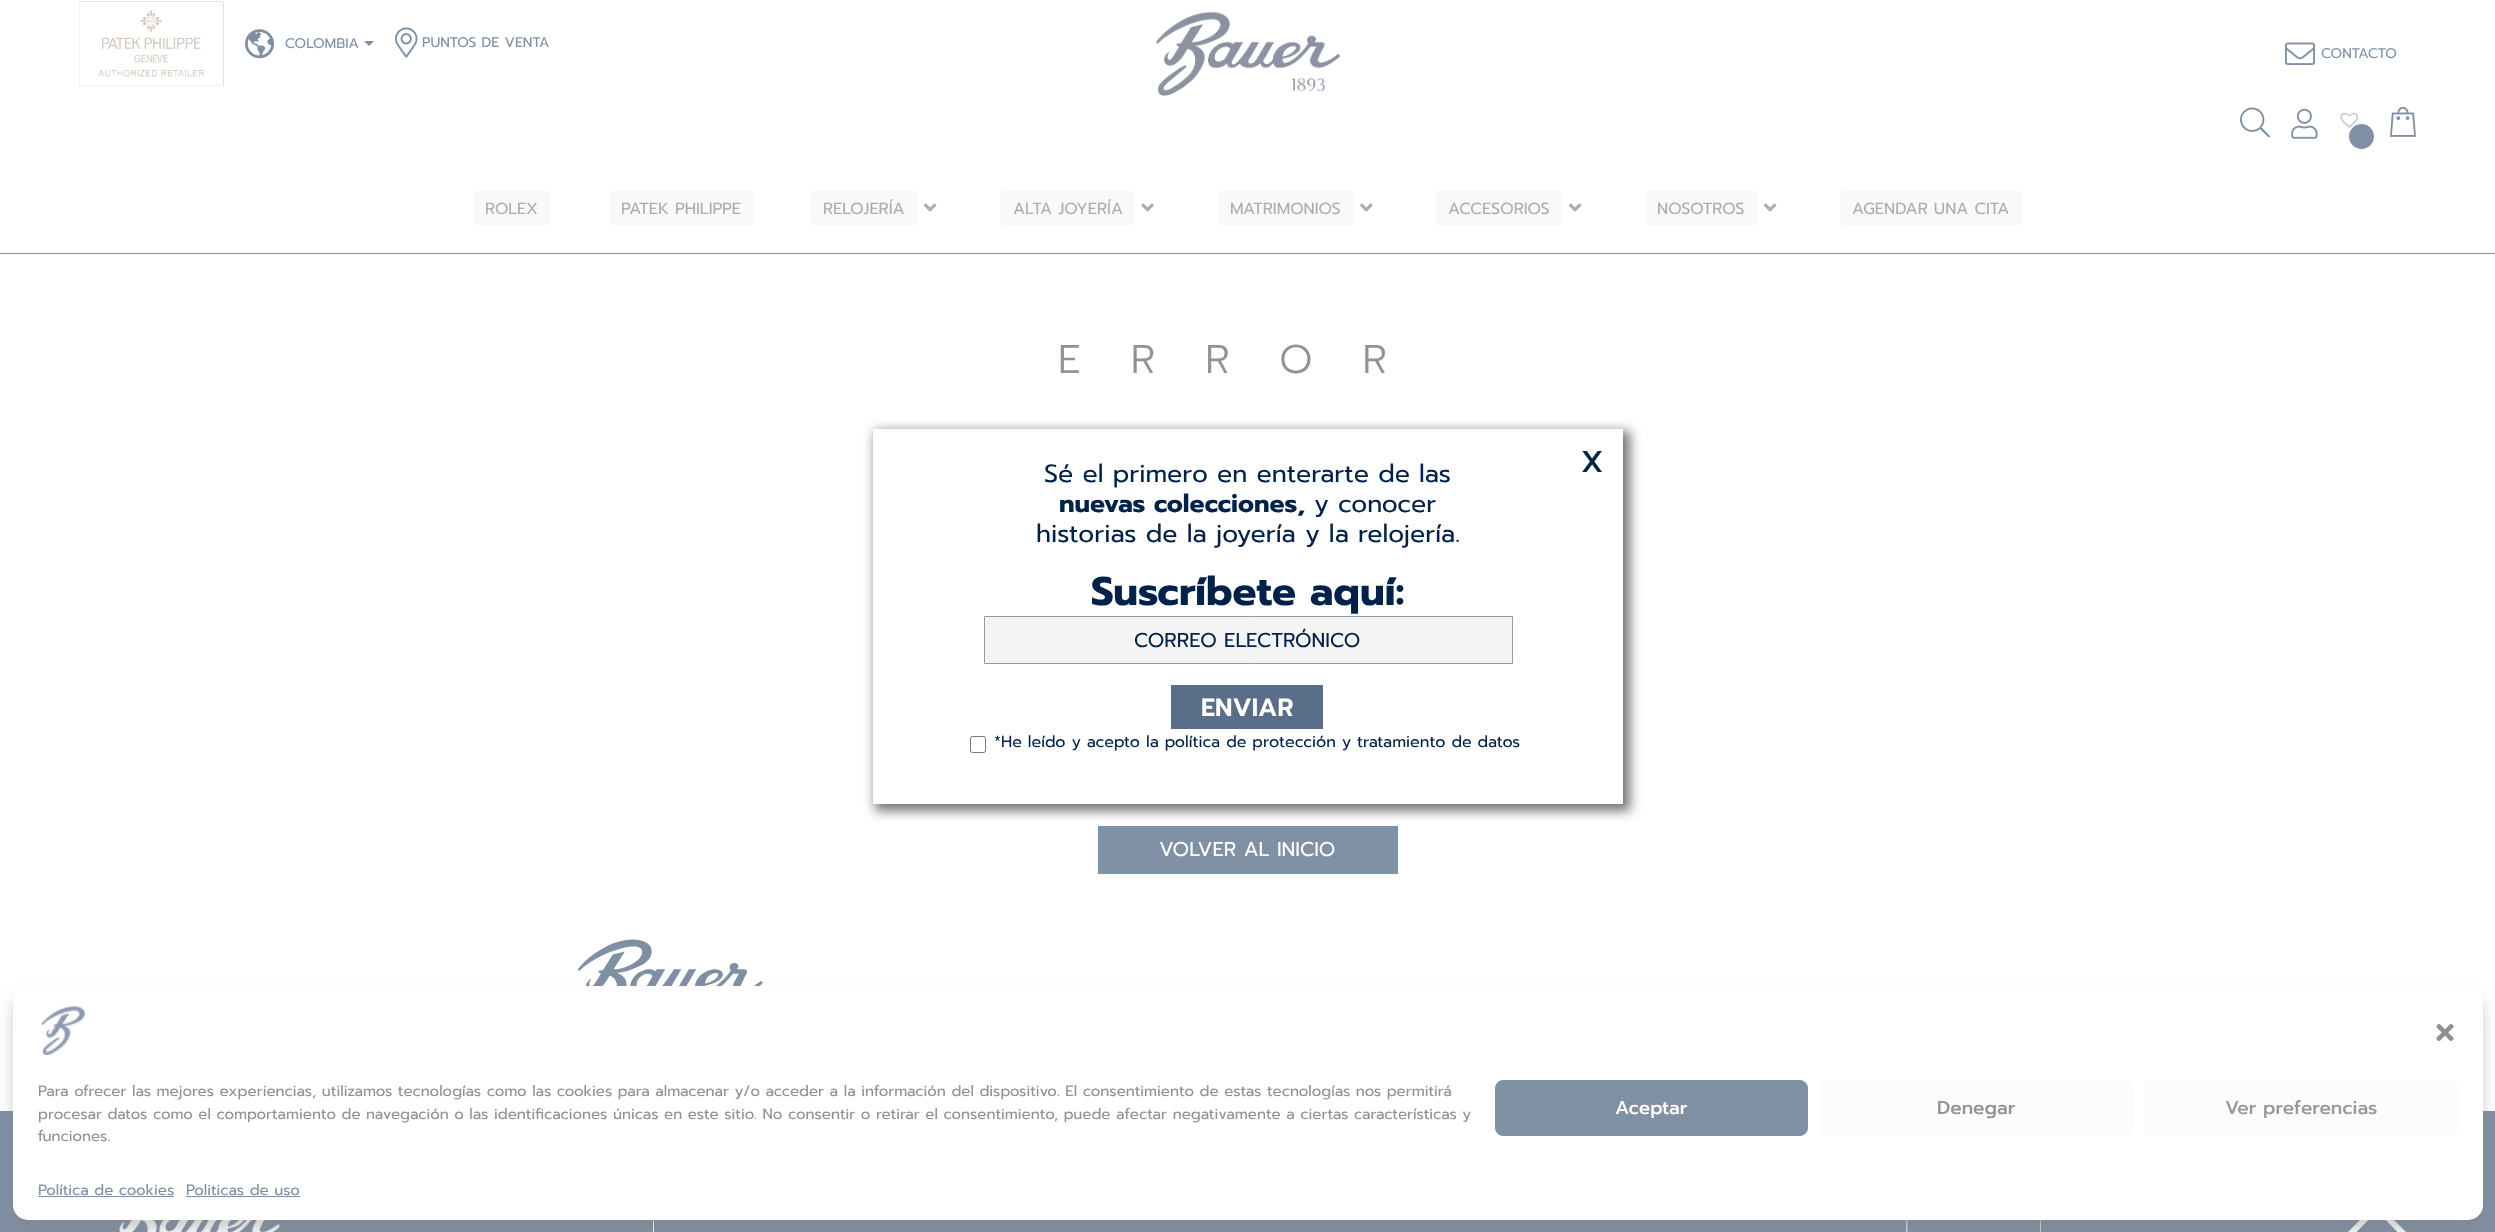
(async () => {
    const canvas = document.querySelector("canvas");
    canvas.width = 2495;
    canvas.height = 1232;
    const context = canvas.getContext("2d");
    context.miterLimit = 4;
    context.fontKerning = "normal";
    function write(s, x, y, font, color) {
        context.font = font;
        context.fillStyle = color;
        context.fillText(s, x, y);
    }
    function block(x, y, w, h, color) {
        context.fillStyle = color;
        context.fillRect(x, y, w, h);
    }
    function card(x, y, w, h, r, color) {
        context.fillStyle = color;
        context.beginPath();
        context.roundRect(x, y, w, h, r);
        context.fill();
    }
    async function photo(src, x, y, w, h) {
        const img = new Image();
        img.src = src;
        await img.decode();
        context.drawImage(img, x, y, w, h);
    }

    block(0, 0, 2495, 1232, "rgb(255, 255, 255)");
    await photo("media/1.png", 79, 1, 145, 85);
    await photo("media/2.png", 245, 29, 30, 30);
    write("COLOMBIA", 285, 48, "14px Prompt", "rgb(128, 144, 165)");
    context.beginPath();
    context.moveTo(364, 41);
    context.lineTo(374, 41);
    context.lineTo(369, 46);
    context.closePath();
    context.fill();
    await photo("media/3.png", 395, 27, 23, 31);
    write("PUNTOS DE VENTA", 422, 47, "14px Prompt", "rgb(128, 144, 165)");
    await photo("media/4.png", 1155, 11, 186, 85);
    await photo("media/5.png", 2285, 42, 30, 23);
    write("CONTACTO", 2321, 58, "14px Prompt", "rgb(128, 144, 165)");
    await photo("media/6.png", 2240, 107, 30, 31);
    await photo("media/7.png", 2291, 108, 27, 31);
    await photo("media/8.png", 2340, 112, 19, 17);
    context.fillStyle = "rgb(128, 145, 165)";
    context.beginPath();
    context.arc(2361.5, 136.5, 12.5, 0, Math.PI * 2);
    context.fill();
    await photo("media/9.png", 2390, 106, 26, 31);
    block(0, 253, 2495, 1, "rgb(128, 144, 165)");
    card(473, 190, 78, 36, 6, "rgb(249, 249, 249)");
    write("ROLEX", 485, 214, "16.25px Prompt", "rgb(173, 173, 173)");
    card(609, 190, 145, 36, 6, "rgb(249, 249, 249)");
    write("PATEK PHILIPPE", 621, 214, "16.25px Prompt", "rgb(173, 173, 173)");
    card(811, 190, 107, 36, 6, "rgb(249, 249, 249)");
    write("RELOJERÍA", 823, 214, "16.25px Prompt", "rgb(173, 173, 173)");
    await photo("media/10.png", 923, 203, 14, 9);
    card(1000, 190, 135, 36, 6, "rgb(249, 249, 249)");
    write("ALTA JOYERÍA", 1013, 214, "16.25px Prompt", "rgb(173, 173, 173)");
    await photo("media/11.png", 1141, 203, 13, 9);
    card(1218, 190, 136, 36, 6, "rgb(249, 249, 249)");
    write("MATRIMONIOS", 1230, 214, "16.25px Prompt", "rgb(173, 173, 173)");
    await photo("media/12.png", 1360, 203, 13, 9);
    card(1436, 190, 127, 36, 6, "rgb(249, 249, 249)");
    write("ACCESORIOS", 1448, 214, "16.25px Prompt", "rgb(173, 173, 173)");
    await photo("media/10.png", 1568, 203, 14, 9);
    card(1645, 190, 113, 36, 6, "rgb(249, 249, 249)");
    write("NOSOTROS", 1657, 214, "16.25px Prompt", "rgb(173, 173, 173)");
    await photo("media/10.png", 1763, 203, 14, 9);
    card(1840, 190, 183, 36, 6, "rgb(249, 249, 249)");
    write("AGENDAR UNA CITA", 1852, 214, "16.25px Prompt", "rgb(173, 173, 173)");
    context.letterSpacing = "50px";
    write("ERROR", 1058, 373, "300 40px Prompt", "rgb(144, 146, 148)");
    block(1098, 826, 300, 48, "rgb(128, 144, 165)");
    context.letterSpacing = "0px";
    write("VOLVER AL INICIO", 1159, 856, "20px Prompt", "rgb(255, 255, 255)");
    await photo("media/13.png", 578, 939, 185, 47);
    context.fillStyle = "rgba(0, 0, 0, 0.55)";
    context.filter = "blur(6px)";
    context.beginPath();
    context.rect(875, 431, 755, 380);
    context.fill();
    context.filter = "none";
    block(873, 429, 750, 375, "rgb(255, 255, 255)");
    write("Sé el primero en enterarte de las", 1044, 482, "25px Prompt", "rgb(0, 33, 74)");
    write("nuevas colecciones,", 1059, 512, "bold 25px Prompt", "rgb(0, 33, 74)");
    write("y conocer", 1314, 512, "25px Prompt", "rgb(0, 33, 74)");
    write("historias de la joyería y la relojería.", 1036, 542, "25px Prompt", "rgb(0, 33, 74)");
    write("Suscríbete aquí:", 1091, 605, "bold 40px Prompt", "rgb(0, 33, 74)");
    context.fillStyle = "rgb(244, 244, 244)";
    context.beginPath();
    context.rect(984.5, 616.5, 528, 47);
    context.fill();
    context.strokeStyle = "rgb(142, 155, 173)";
    context.stroke();
    write("CORREO ELECTRÓNICO", 1134, 647, "20px Prompt", "rgb(0, 33, 74)");
    block(1171, 685, 152, 44, "rgb(89, 111, 137)");
    write("ENVIAR", 1201, 716, "600 25px Prompt", "rgb(255, 255, 255)");
    context.beginPath();
    context.roundRect(970.5, 736.5, 15, 16, 2);
    context.strokeStyle = "rgb(118, 118, 118)";
    context.stroke();
    write("*He leído y acepto la política de protección y tratamiento de datos", 994, 747, "16px Prompt", "rgb(0, 33, 74)");
    write("X", 1581, 472, "500 30px Prompt", "rgb(0, 33, 74)");
    block(0, 1111, 2495, 121, "rgb(128, 144, 165)");
    await photo("media/14.png", 119, 1220, 161, 12);
    context.strokeStyle = "rgb(255, 255, 255)";
    context.strokeRect(653.5, 1185.5, 1254, 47);
    block(1907, 1220, 1, 12, "rgba(128, 144, 165, 0.65)");
    context.strokeStyle = "rgba(255, 255, 255, 0.65)";
    context.strokeRect(1906.5, 1185.5, 134, 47);
    context.fillStyle = "rgb(255, 255, 255)";
    context.beginPath();
    context.moveTo(2338, 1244);
    context.bezierCurveTo(2337, 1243, 2337, 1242, 2338, 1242);
    context.lineTo(2376, 1204);
    context.bezierCurveTo(2377, 1203, 2378, 1203, 2378, 1204);
    context.lineTo(2416, 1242);
    context.bezierCurveTo(2417, 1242, 2417, 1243, 2416, 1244);
    context.lineTo(2414, 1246);
    context.bezierCurveTo(2413, 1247, 2412, 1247, 2411, 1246);
    context.lineTo(2377, 1211);
    context.lineTo(2343, 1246);
    context.bezierCurveTo(2342, 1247, 2341, 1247, 2340, 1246);
    context.closePath();
    context.fill();
    context.fillStyle = "rgba(128, 128, 128, 0.23)";
    context.filter = "blur(4px)";
    context.beginPath();
    context.roundRect(13, 994, 2470, 234, 15);
    context.fill();
    context.filter = "none";
    context.fillStyle = "rgba(128, 128, 128, 0.19)";
    context.filter = "blur(12.5px)";
    context.beginPath();
    context.roundRect(13, 999, 2470, 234, 15);
    context.fill();
    context.filter = "none";
    card(13, 986, 2470, 234, 15, "rgb(255, 255, 255)");
    await photo("media/15.png", 41, 1005, 45, 50);
    await photo("media/16.png", 2436, 1023, 18, 18);
    write("Para ofrecer las mejores experiencias, utilizamos tecnologías como las cookies para almacenar y/o acceder a la información del dispositivo. El consentimiento de estas tecnologías nos permitirá", 38, 1096, "15px Prompt", "rgb(144, 146, 148)");
    write("procesar datos como el comportamiento de navegación o las identificaciones únicas en este sitio. No consentir o retirar el consentimiento, puede afectar negativamente a ciertas características y", 38, 1119, "15px Prompt", "rgb(144, 146, 148)");
    write("funciones.", 38, 1141, "15px Prompt", "rgb(144, 146, 148)");
    context.fillStyle = "rgb(128, 144, 165)";
    context.beginPath();
    context.roundRect(1495.5, 1080.5, 312, 55, 7.5);
    context.fill();
    context.strokeStyle = "rgb(128, 144, 165)";
    context.stroke();
    write("Aceptar", 1615, 1114, "500 18.75px Prompt", "rgb(255, 255, 255)");
    context.fillStyle = "rgb(252, 252, 252)";
    context.beginPath();
    context.roundRect(1820.5, 1080.5, 312, 55, 7.5);
    context.fill();
    context.strokeStyle = "rgb(249, 249, 249)";
    context.stroke();
    write("Denegar", 1937, 1114, "500 18.75px Prompt", "rgb(144, 146, 148)");
    context.fillStyle = "rgb(252, 252, 252)";
    context.beginPath();
    context.roundRect(2145.5, 1080.5, 312, 55, 7.5);
    context.fill();
    context.stroke();
    write("Ver preferencias", 2225, 1114, "500 18.75px Prompt", "rgb(153, 153, 153)");
    write("Política de cookies", 38, 1195, "15px Prompt", "rgb(128, 144, 165)");
    block(38, 1196, 136, 1, "rgb(128, 144, 165)");
    write("Politicas de uso", 186, 1195, "15px Prompt", "rgb(128, 144, 165)");
    block(186, 1196, 114, 1, "rgb(128, 144, 165)");
})();
